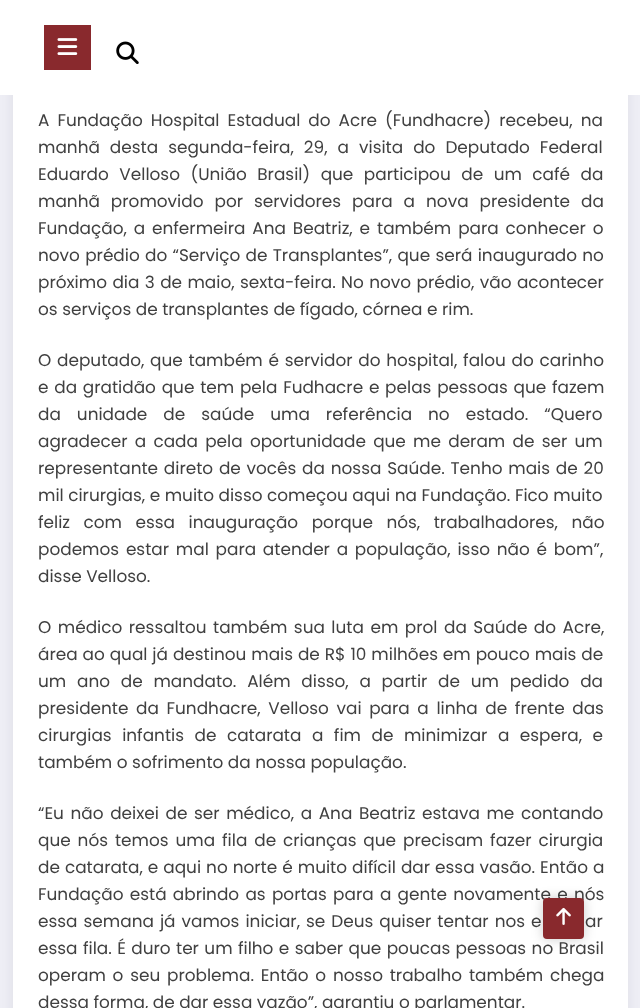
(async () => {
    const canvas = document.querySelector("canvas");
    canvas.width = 640;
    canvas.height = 1008;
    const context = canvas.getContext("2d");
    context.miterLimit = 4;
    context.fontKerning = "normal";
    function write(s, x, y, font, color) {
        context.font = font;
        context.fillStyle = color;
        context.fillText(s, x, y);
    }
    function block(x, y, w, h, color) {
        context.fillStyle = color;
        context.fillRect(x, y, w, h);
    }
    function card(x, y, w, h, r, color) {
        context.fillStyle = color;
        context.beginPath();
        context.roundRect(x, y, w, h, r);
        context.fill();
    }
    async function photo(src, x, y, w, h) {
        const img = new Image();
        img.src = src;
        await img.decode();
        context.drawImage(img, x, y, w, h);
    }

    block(0, 0, 640, 1008, "rgb(238, 238, 245)");
    context.fillStyle = "rgba(23, 23, 35, 0.05)";
    context.filter = "blur(5px)";
    context.beginPath();
    context.rect(10, -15, 620, 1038);
    context.fill();
    context.filter = "none";
    block(0, 0, 640, 95, "rgb(255, 255, 255)");
    block(44, 25, 47, 45, "rgb(137, 41, 45)");
    await photo("media/1.png", 57, 38, 21, 17);
    await photo("media/2.png", 116, 41, 23, 23);
    block(13, 95, 615, 913, "rgb(255, 255, 255)");
    context.wordSpacing = "3.5px";
    write("A Fundação Hospital Estadual do Acre (Fundhacre) recebeu, na", 38, 126, "16.9px Poppins", "rgb(64, 64, 64)");
    context.wordSpacing = "5.5px";
    write("manhã desta segunda-feira, 29, a visita do Deputado Federal", 38, 153, "16.9px Poppins", "rgb(64, 64, 64)");
    context.wordSpacing = "6px";
    write("Eduardo Velloso (União Brasil) que participou de um café da", 38, 180, "16.9px Poppins", "rgb(64, 64, 64)");
    context.wordSpacing = "6.5px";
    write("manhã promovido por servidores para a nova presidente da", 38, 207, "16.9px Poppins", "rgb(64, 64, 64)");
    context.wordSpacing = "2.4px";
    write("Fundação, a enfermeira Ana Beatriz, e também para conhecer o", 38, 234, "16.9px Poppins", "rgb(64, 64, 64)");
    context.wordSpacing = "0.75px";
    write("novo prédio do “Serviço de Transplantes”, que será inaugurado no", 38, 261, "16.9px Poppins", "rgb(64, 64, 64)");
    context.wordSpacing = "0.9px";
    write("próximo dia 3 de maio, sexta-feira. No novo prédio, vão acontecer", 38, 288, "16.9px Poppins", "rgb(64, 64, 64)");
    context.wordSpacing = "0px";
    write("os serviços de transplantes de fígado, córnea e rim.", 38, 315, "16.9px Poppins", "rgb(64, 64, 64)");
    context.wordSpacing = "1.25px";
    write("O deputado, que também é servidor do hospital, falou do carinho", 38, 366, "16.9px Poppins", "rgb(64, 64, 64)");
    write("e da gratidão que tem pela Fudhacre e pelas pessoas que fazem", 38, 393, "16.9px Poppins", "rgb(64, 64, 64)");
    context.wordSpacing = "11.5px";
    write("da unidade de saúde uma referência no estado. “Quero", 38, 420, "16.9px Poppins", "rgb(64, 64, 64)");
    context.wordSpacing = "2.75px";
    write("agradecer a cada pela oportunidade que me deram de ser um", 38, 447, "16.9px Poppins", "rgb(64, 64, 64)");
    context.wordSpacing = "1.25px";
    write("representante direto de vocês da nossa Saúde. Tenho mais de 20", 38, 474, "16.9px Poppins", "rgb(64, 64, 64)");
    context.wordSpacing = "0px";
    write("mil cirurgias, e muito disso começou aqui na Fundação. Fico muito", 38, 501, "16.9px Poppins", "rgb(64, 64, 64)");
    context.wordSpacing = "9px";
    write("feliz com essa inauguração porque nós, trabalhadores, não", 38, 528, "16.9px Poppins", "rgb(64, 64, 64)");
    context.wordSpacing = "2.25px";
    write("podemos estar mal para atender a população, isso não é bom”,", 38, 555, "16.9px Poppins", "rgb(64, 64, 64)");
    context.wordSpacing = "0px";
    write("disse Velloso.", 38, 582, "16.9px Poppins", "rgb(64, 64, 64)");
    context.wordSpacing = "2px";
    write("O médico ressaltou também sua luta em prol da Saúde do Acre,", 38, 633, "16.9px Poppins", "rgb(64, 64, 64)");
    context.wordSpacing = "0.4px";
    write("área ao qual já destinou mais de R$ 10 milhões em pouco mais de", 38, 660, "16.9px Poppins", "rgb(64, 64, 64)");
    context.wordSpacing = "6.25px";
    write("um ano de mandato. Além disso, a partir de um pedido da", 38, 687, "16.9px Poppins", "rgb(64, 64, 64)");
    context.wordSpacing = "3.1px";
    write("presidente da Fundhacre, Velloso vai para a linha de frente das", 38, 714, "16.9px Poppins", "rgb(64, 64, 64)");
    context.wordSpacing = "6px";
    write("cirurgias infantis de catarata a fim de minimizar a espera, e", 38, 741, "16.9px Poppins", "rgb(64, 64, 64)");
    context.wordSpacing = "0px";
    write("também o sofrimento da nossa população.", 38, 768, "16.9px Poppins", "rgb(64, 64, 64)");
    context.wordSpacing = "2.1px";
    write("“Eu não deixei de ser médico, a Ana Beatriz estava me contando", 38, 819, "16.9px Poppins", "rgb(64, 64, 64)");
    context.wordSpacing = "2.4px";
    write("que nós temos uma fila de crianças que precisam fazer cirurgia", 38, 846, "16.9px Poppins", "rgb(64, 64, 64)");
    context.wordSpacing = "0.5px";
    write("de catarata, e aqui no norte é muito difícil dar essa vasão. Então a", 38, 873, "16.9px Poppins", "rgb(64, 64, 64)");
    context.wordSpacing = "1.75px";
    write("Fundação está abrindo as portas para a gente novamente e nós", 38, 900, "16.9px Poppins", "rgb(64, 64, 64)");
    context.wordSpacing = "1.5px";
    write("essa semana já vamos iniciar, se Deus quiser tentar nos e", 38, 927, "16.9px Poppins", "rgb(64, 64, 64)");
    write("ar", 585, 927, "16.9px Poppins", "rgb(64, 64, 64)");
    context.wordSpacing = "0.9px";
    write("essa fila. É duro ter um filho e saber que poucas pessoas no Brasil", 38, 954, "16.9px Poppins", "rgb(64, 64, 64)");
    context.wordSpacing = "2.25px";
    write("operam o seu problema. Então o nosso trabalho também chega", 38, 981, "16.9px Poppins", "rgb(64, 64, 64)");
    context.wordSpacing = "0px";
    write("dessa forma, de dar essa vazão”, garantiu o parlamentar.", 38, 1008, "16.9px Poppins", "rgb(64, 64, 64)");
    context.fillStyle = "rgba(0, 0, 0, 0.2)";
    context.filter = "blur(6px)";
    context.beginPath();
    context.roundRect(543, 898, 41, 41, 4);
    context.fill();
    context.filter = "none";
    card(543, 898, 41, 41, 4, "rgb(137, 41, 45)");
    await photo("media/3.png", 556, 907, 15, 18);
})();
